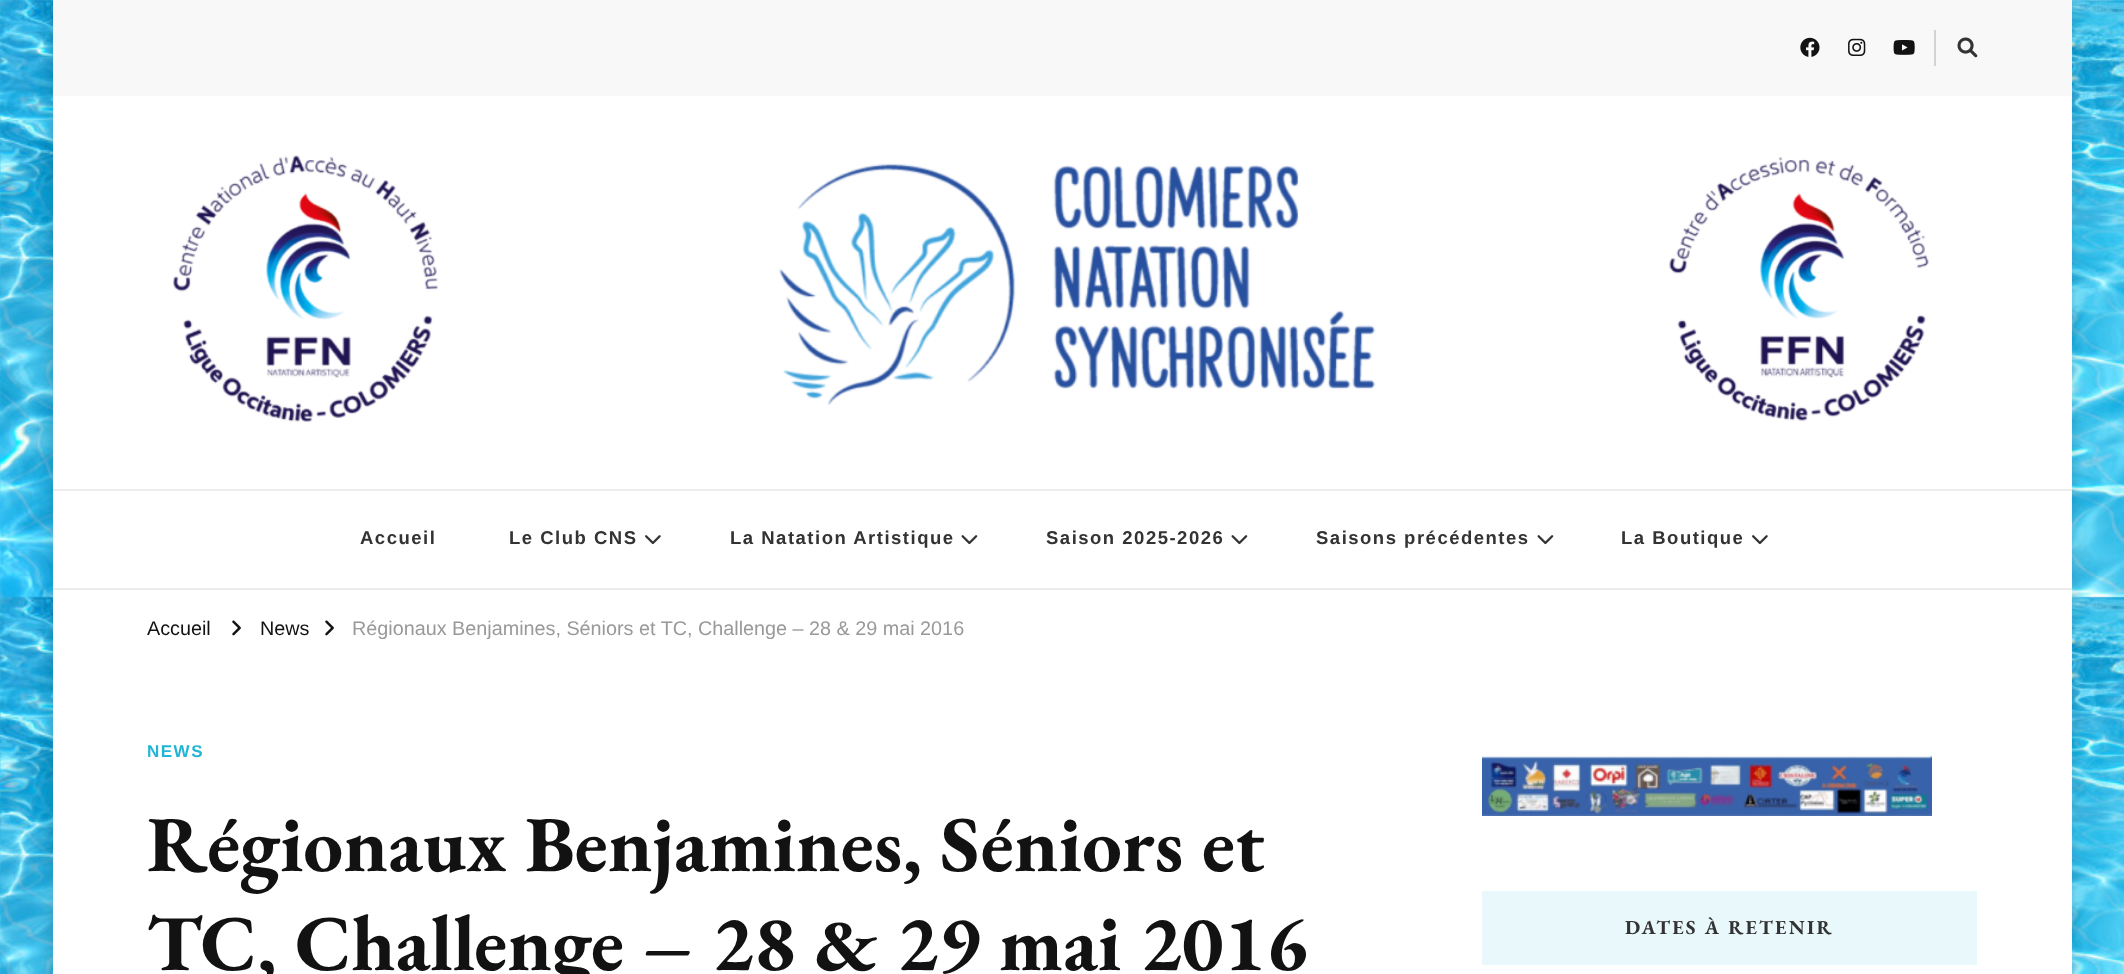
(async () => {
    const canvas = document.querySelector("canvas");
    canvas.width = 2124;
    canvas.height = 974;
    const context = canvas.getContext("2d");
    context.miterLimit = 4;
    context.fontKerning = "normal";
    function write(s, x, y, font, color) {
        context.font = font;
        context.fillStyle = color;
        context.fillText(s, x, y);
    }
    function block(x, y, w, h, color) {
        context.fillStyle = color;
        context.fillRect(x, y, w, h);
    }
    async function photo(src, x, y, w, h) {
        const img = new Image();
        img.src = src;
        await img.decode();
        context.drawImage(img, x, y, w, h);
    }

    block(0, 0, 2124, 974, "rgb(255, 255, 255)");
    await photo("media/1.png", 0, 0, 2124, 974);
    context.fillStyle = "rgba(0, 0, 0, 0.16)";
    context.filter = "blur(7.5px)";
    context.beginPath();
    context.rect(53, 0, 2019, 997);
    context.fill();
    context.filter = "none";
    block(53, 96, 2019, 878, "rgb(255, 255, 255)");
    block(53, 0, 2019, 96, "rgb(248, 248, 248)");
    await photo("media/2.png", 1800, 37, 20, 20);
    await photo("media/3.png", 1848, 38, 18, 18);
    await photo("media/4.png", 1893, 40, 22, 15);
    block(1934, 30, 2, 36, "rgb(211, 211, 211)");
    await photo("media/5.png", 1957, 37, 21, 21);
    await photo("media/6.png", 173, 155, 1756, 267);
    block(53, 489, 2019, 2, "rgb(237, 237, 237)");
    block(53, 588, 2019, 2, "rgb(237, 237, 237)");
    context.letterSpacing = "1.5px";
    write("Accueil", 360, 544, "bold 18.5px Liberation Sans", "rgb(51, 51, 51)");
    write("Le Club CNS", 509, 544, "bold 18.5px Liberation Sans", "rgb(51, 51, 51)");
    await photo("media/7.png", 645, 535, 16, 10);
    write("La Natation Artistique", 730, 544, "bold 18.5px Liberation Sans", "rgb(51, 51, 51)");
    await photo("media/8.png", 961, 535, 17, 10);
    write("Saison 2025-2026", 1046, 544, "bold 18.5px Liberation Sans", "rgb(51, 51, 51)");
    await photo("media/8.png", 1231, 535, 17, 10);
    write("Saisons précédentes", 1316, 544, "bold 18.5px Liberation Sans", "rgb(51, 51, 51)");
    await photo("media/8.png", 1537, 535, 17, 10);
    write("La Boutique", 1621, 544, "bold 18.5px Liberation Sans", "rgb(51, 51, 51)");
    await photo("media/7.png", 1752, 535, 16, 10);
    context.letterSpacing = "0px";
    write("Accueil", 147, 635, "19.8px Liberation Sans", "rgb(18, 18, 18)");
    await photo("media/9.png", 232, 620, 9, 16);
    write("News", 260, 635, "19.8px Liberation Sans", "rgb(18, 18, 18)");
    await photo("media/9.png", 325, 620, 9, 16);
    write("Régionaux Benjamines, Séniors et TC, Challenge – 28 & 29 mai 2016", 352, 635, "19.8px Liberation Sans", "rgb(153, 153, 153)");
    context.letterSpacing = "1.5px";
    write("NEWS", 147, 757, "bold 17px Liberation Sans", "rgb(34, 181, 214)");
    context.letterSpacing = "0px";
    write("Régionaux Benjamines, Séniors et", 147, 871, "bold 79.25px EB Garamond", "rgb(18, 18, 18)");
    write("TC, Challenge – 28 & 29 mai 2016", 147, 970, "bold 79.25px EB Garamond", "rgb(18, 18, 18)");
    await photo("media/10.png", 1482, 755, 450, 61);
    block(1482, 891, 495, 74, "rgb(233, 248, 251)");
    context.letterSpacing = "2.25px";
    write("DATES À RETENIR", 1625, 934, "bold 19.8px EB Garamond", "rgb(51, 51, 51)");
})();
